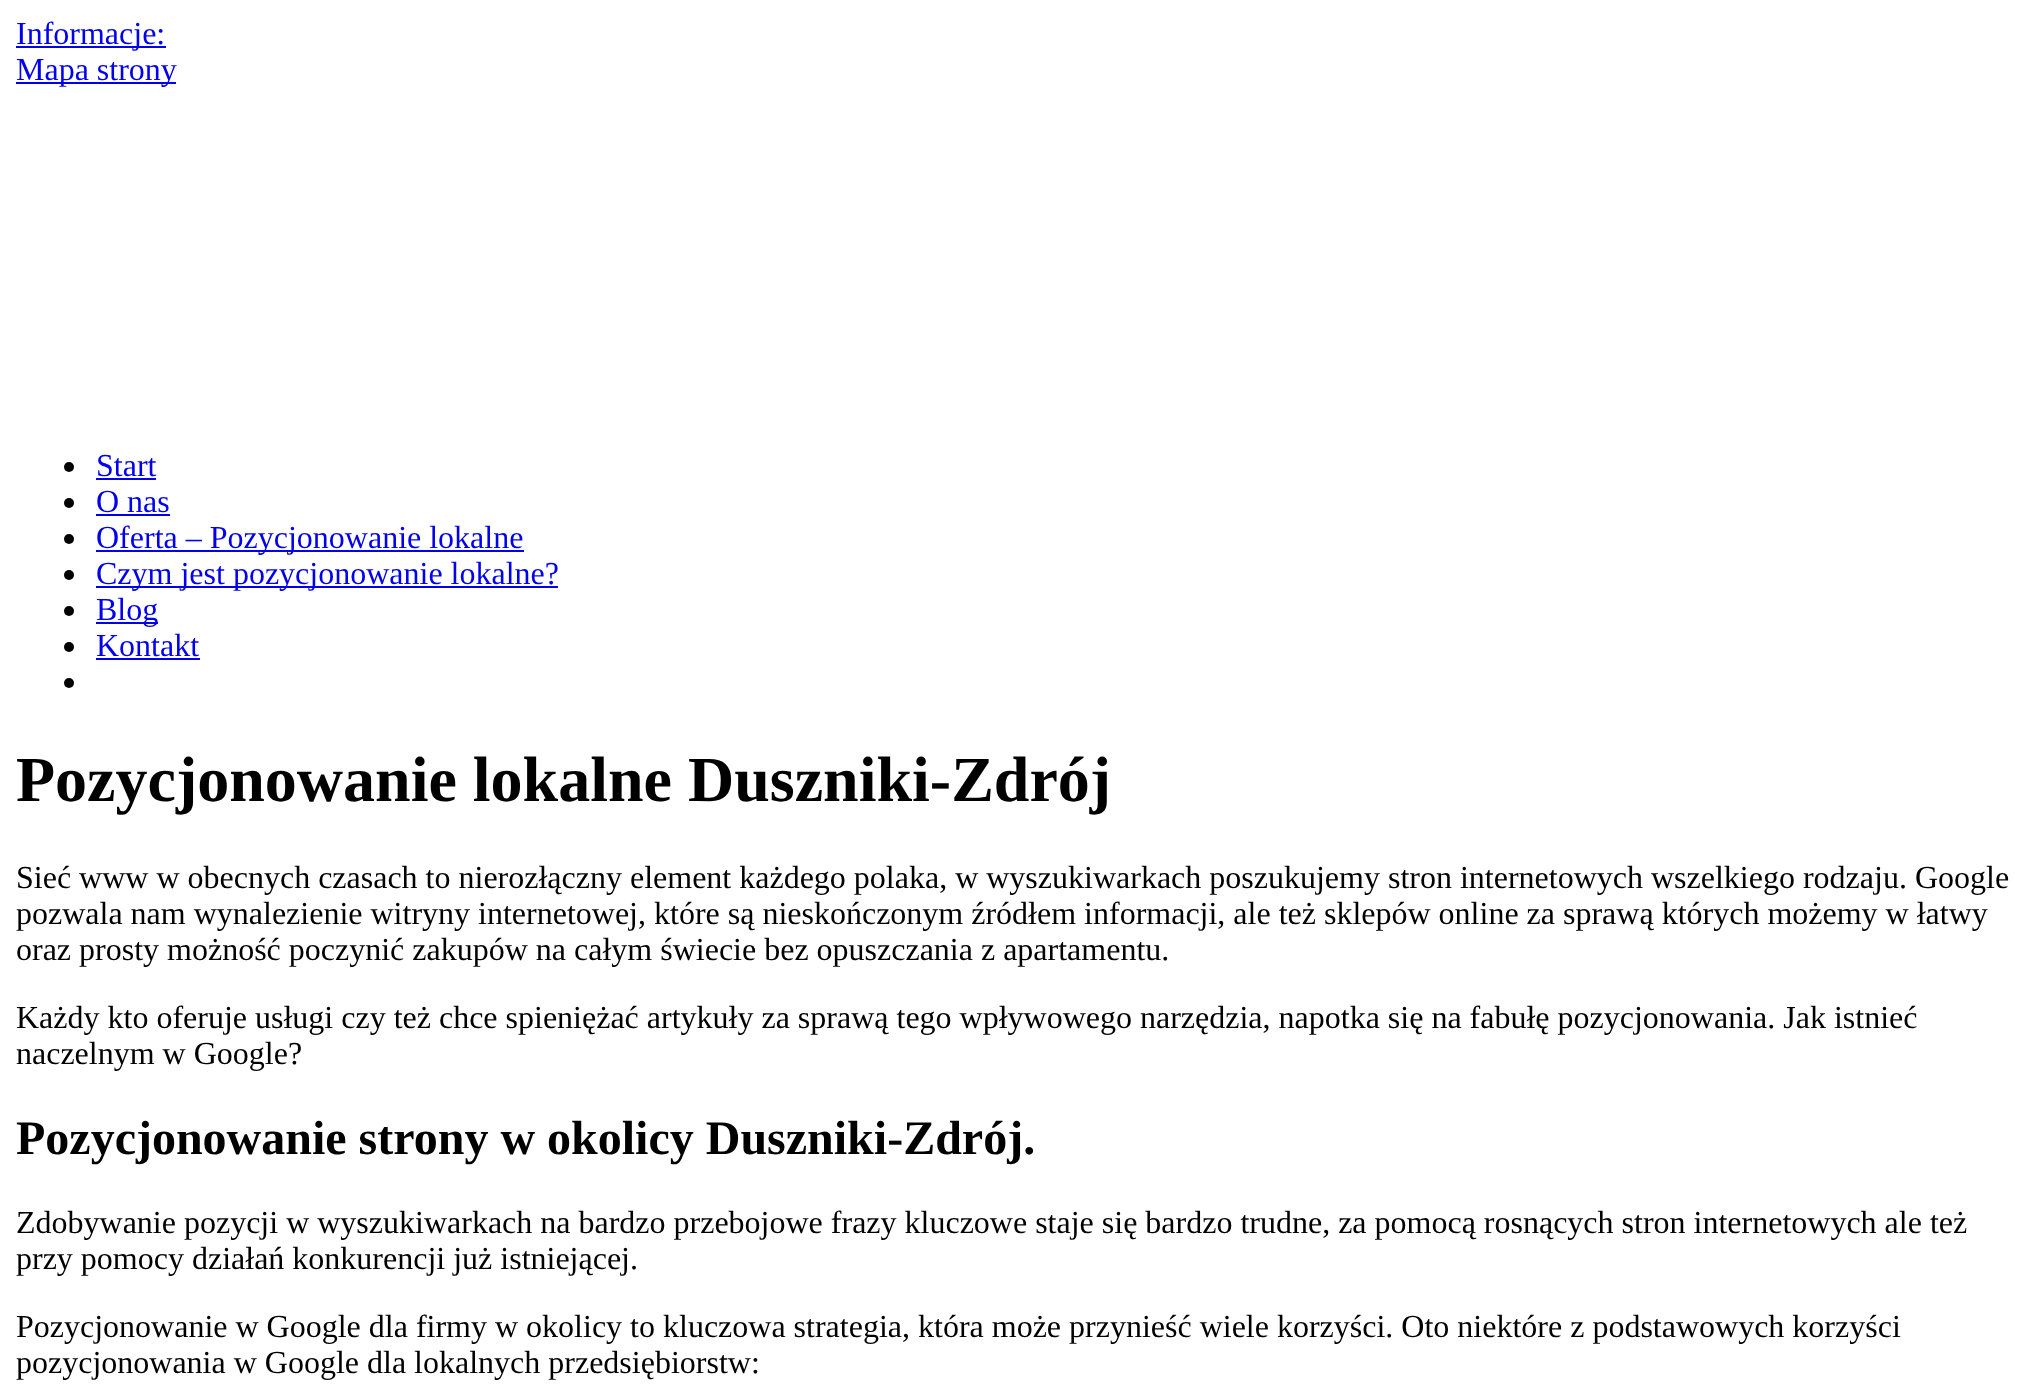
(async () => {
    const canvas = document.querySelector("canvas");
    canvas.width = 2034;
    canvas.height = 1397;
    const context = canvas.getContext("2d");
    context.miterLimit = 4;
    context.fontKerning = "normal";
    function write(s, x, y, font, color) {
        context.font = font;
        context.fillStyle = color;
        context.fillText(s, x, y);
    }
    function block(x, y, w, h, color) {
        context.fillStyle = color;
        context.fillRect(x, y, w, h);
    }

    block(0, 0, 2034, 1397, "rgb(255, 255, 255)");
    block(16, 46, 150, 2, "rgb(0, 0, 238)");
    write("Informacje:", 16, 44, "32px Liberation Serif", "rgb(0, 0, 238)");
    block(16, 82, 160, 2, "rgb(0, 0, 238)");
    write("Mapa strony", 16, 80, "32px Liberation Serif", "rgb(0, 0, 238)");
    context.fillStyle = "rgb(0, 0, 0)";
    context.beginPath();
    context.arc(69, 467, 5, 0, Math.PI * 2);
    context.fill();
    write("Start", 96, 476, "32px Liberation Serif", "rgb(0, 0, 238)");
    block(96, 478, 60, 2, "rgb(0, 0, 238)");
    context.fillStyle = "rgb(0, 0, 0)";
    context.beginPath();
    context.arc(69, 503, 5, 0, Math.PI * 2);
    context.fill();
    write("O nas", 96, 512, "32px Liberation Serif", "rgb(0, 0, 238)");
    block(96, 514, 74, 2, "rgb(0, 0, 238)");
    context.fillStyle = "rgb(0, 0, 0)";
    context.beginPath();
    context.arc(69, 539, 5, 0, Math.PI * 2);
    context.fill();
    block(96, 550, 428, 2, "rgb(0, 0, 238)");
    write("Oferta – Pozycjonowanie lokalne", 96, 548, "32px Liberation Serif", "rgb(0, 0, 238)");
    context.fillStyle = "rgb(0, 0, 0)";
    context.beginPath();
    context.arc(69, 575, 5, 0, Math.PI * 2);
    context.fill();
    block(96, 586, 462, 2, "rgb(0, 0, 238)");
    write("Czym jest pozycjonowanie lokalne?", 96, 584, "32px Liberation Serif", "rgb(0, 0, 238)");
    context.fillStyle = "rgb(0, 0, 0)";
    context.beginPath();
    context.arc(69, 611, 5, 0, Math.PI * 2);
    context.fill();
    block(96, 622, 62, 2, "rgb(0, 0, 238)");
    write("Blog", 96, 620, "32px Liberation Serif", "rgb(0, 0, 238)");
    context.fillStyle = "rgb(0, 0, 0)";
    context.beginPath();
    context.arc(69, 647, 5, 0, Math.PI * 2);
    context.fill();
    write("Kontakt", 96, 656, "32px Liberation Serif", "rgb(0, 0, 238)");
    block(96, 658, 104, 2, "rgb(0, 0, 238)");
    context.fillStyle = "rgb(0, 0, 0)";
    context.beginPath();
    context.arc(69, 683, 5, 0, Math.PI * 2);
    context.fill();
    write("Pozycjonowanie lokalne Duszniki-Zdrój", 16, 801, "bold 64px Liberation Serif", "rgb(0, 0, 0)");
    write("Sieć www w obecnych czasach to nierozłączny element każdego polaka, w wyszukiwarkach poszukujemy stron internetowych wszelkiego rodzaju. Google", 16, 888, "32px Liberation Serif", "rgb(0, 0, 0)");
    write("pozwala nam wynalezienie witryny internetowej, które są nieskończonym źródłem informacji, ale też sklepów online za sprawą których możemy w łatwy", 16, 924, "32px Liberation Serif", "rgb(0, 0, 0)");
    write("oraz prosty możność poczynić zakupów na całym świecie bez opuszczania z apartamentu.", 16, 960, "32px Liberation Serif", "rgb(0, 0, 0)");
    write("Każdy kto oferuje usługi czy też chce spieniężać artykuły za sprawą tego wpływowego narzędzia, napotka się na fabułę pozycjonowania. Jak istnieć", 16, 1028, "32px Liberation Serif", "rgb(0, 0, 0)");
    write("naczelnym w Google?", 16, 1064, "32px Liberation Serif", "rgb(0, 0, 0)");
    write("Pozycjonowanie strony w okolicy Duszniki-Zdrój.", 16, 1154, "bold 48px Liberation Serif", "rgb(0, 0, 0)");
    write("Zdobywanie pozycji w wyszukiwarkach na bardzo przebojowe frazy kluczowe staje się bardzo trudne, za pomocą rosnących stron internetowych ale też", 16, 1233, "32px Liberation Serif", "rgb(0, 0, 0)");
    write("przy pomocy działań konkurencji już istniejącej.", 16, 1269, "32px Liberation Serif", "rgb(0, 0, 0)");
    write("Pozycjonowanie w Google dla firmy w okolicy to kluczowa strategia, która może przynieść wiele korzyści. Oto niektóre z podstawowych korzyści", 16, 1337, "32px Liberation Serif", "rgb(0, 0, 0)");
    write("pozycjonowania w Google dla lokalnych przedsiębiorstw:", 16, 1373, "32px Liberation Serif", "rgb(0, 0, 0)");
})();
